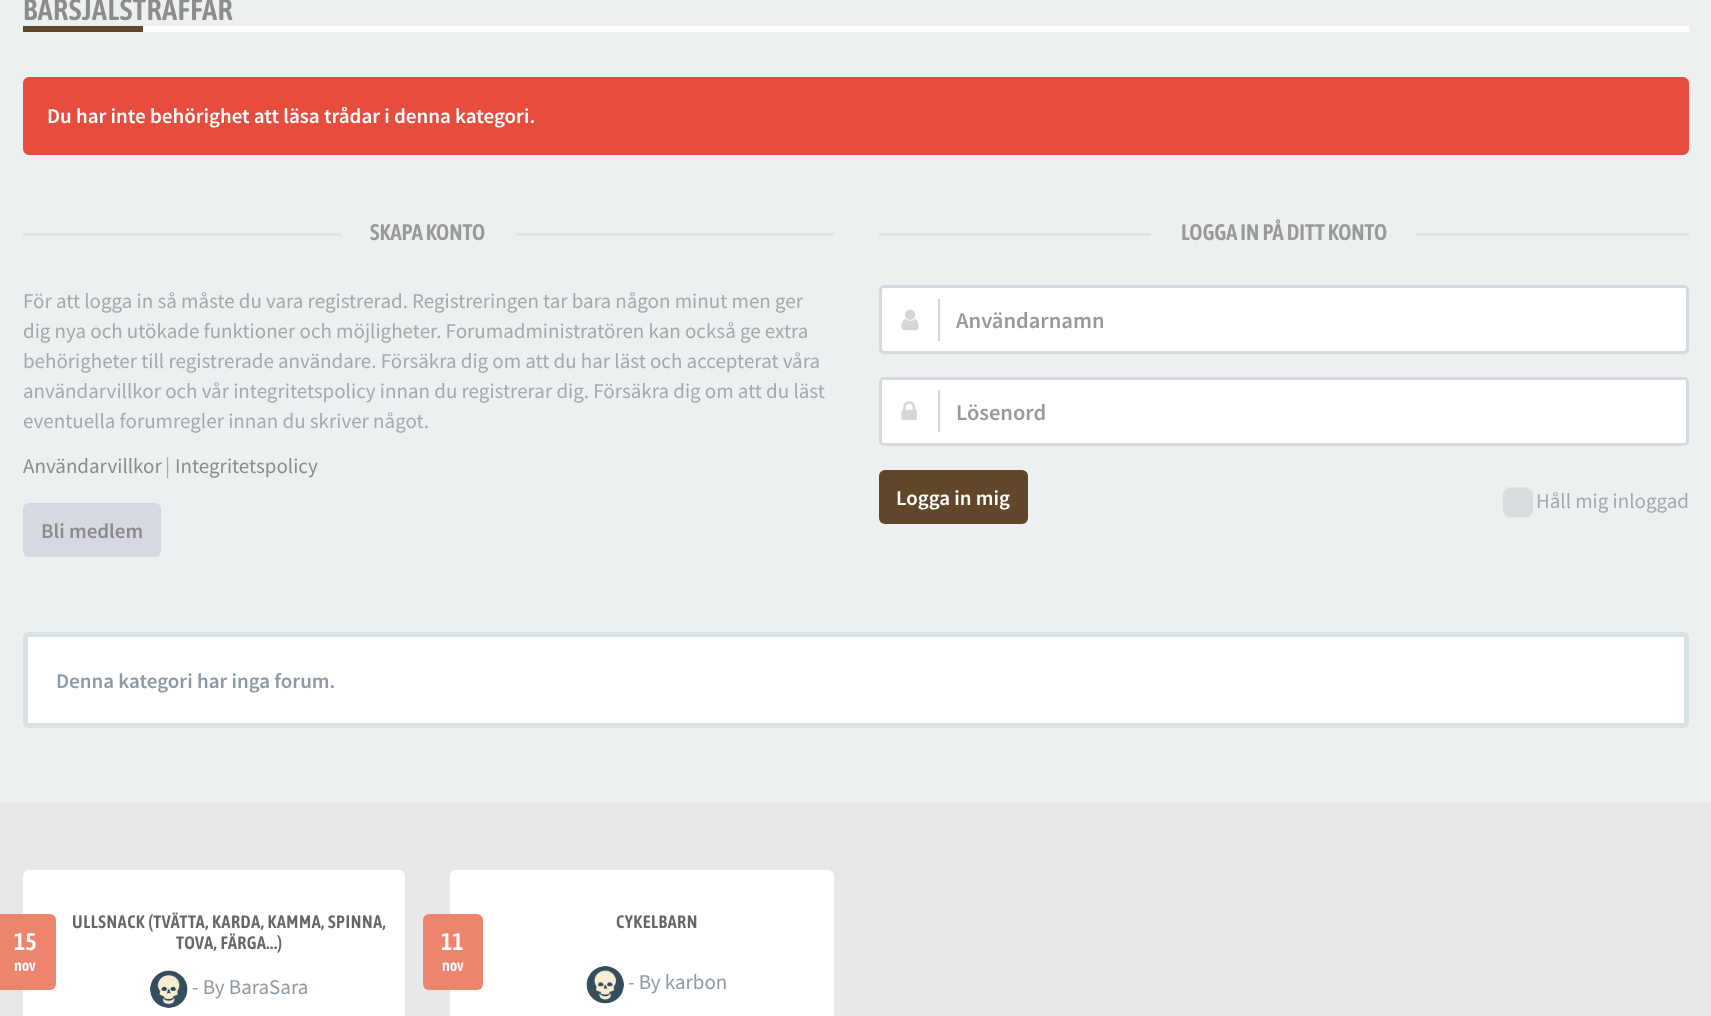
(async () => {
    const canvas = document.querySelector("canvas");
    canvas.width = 1711;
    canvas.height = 1016;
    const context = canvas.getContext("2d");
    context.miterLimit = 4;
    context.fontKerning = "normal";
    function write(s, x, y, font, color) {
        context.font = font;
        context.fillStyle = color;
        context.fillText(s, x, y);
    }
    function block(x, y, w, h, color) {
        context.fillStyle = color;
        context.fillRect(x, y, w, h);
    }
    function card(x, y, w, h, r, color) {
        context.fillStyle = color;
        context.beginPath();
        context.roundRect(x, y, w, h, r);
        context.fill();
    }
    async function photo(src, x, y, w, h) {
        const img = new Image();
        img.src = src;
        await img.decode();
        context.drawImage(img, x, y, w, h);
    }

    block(0, 0, 1711, 1016, "rgb(236, 240, 241)");
    block(143, 26, 1546, 6, "rgb(255, 255, 255)");
    context.letterSpacing = "0.6px";
    write("BÄRSJALSTRÄFFAR", 23, 20, "600 30px Asap Condensed", "rgb(140, 140, 140)");
    block(23, 26, 120, 6, "rgb(98, 70, 41)");
    context.fillStyle = "rgb(231, 76, 60)";
    context.beginPath();
    context.roundRect(24, 78, 1664, 76, 5);
    context.fill();
    context.strokeStyle = "rgb(231, 76, 60)";
    context.lineWidth = 2;
    context.stroke();
    context.letterSpacing = "0px";
    write("Du har inte behörighet att läsa trådar i denna kategori.", 47, 123, "600 21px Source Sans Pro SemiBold", "rgb(255, 255, 255)");
    block(23, 233, 811, 3, "rgb(228, 228, 228)");
    block(341, 233, 175, 3, "rgb(236, 240, 241)");
    write("SKAPA KONTO", 370, 240, "600 22.5px Asap Condensed", "rgb(153, 153, 153)");
    write("För att logga in så måste du vara registrerad. Registreringen tar bara någon minut men ger", 23, 308, "21px Source Sans Pro", "rgb(161, 169, 177)");
    write("dig nya och utökade funktioner och möjligheter. Forumadministratören kan också ge extra", 23, 338, "21px Source Sans Pro", "rgb(161, 169, 177)");
    write("behörigheter till registrerade användare. Försäkra dig om att du har läst och accepterat våra", 23, 368, "21px Source Sans Pro", "rgb(161, 169, 177)");
    write("användarvillkor och vår integritetspolicy innan du registrerar dig. Försäkra dig om att du läst", 23, 398, "21px Source Sans Pro", "rgb(161, 169, 177)");
    write("eventuella forumregler innan du skriver något.", 23, 428, "21px Source Sans Pro", "rgb(161, 169, 177)");
    write("Användarvillkor", 23, 473, "21px Source Sans Pro", "rgb(140, 140, 140)");
    write("|", 165, 473, "21px Source Sans Pro", "rgb(161, 169, 177)");
    write("Integritetspolicy", 175, 473, "21px Source Sans Pro", "rgb(140, 140, 140)");
    card(23, 503, 138, 54, 6, "rgb(214, 217, 224)");
    write("Bli medlem", 41, 538, "600 21px Source Sans Pro SemiBold", "rgb(140, 140, 140)");
    block(879, 233, 810, 3, "rgb(228, 228, 228)");
    block(1151, 233, 265, 3, "rgb(236, 240, 241)");
    write("LOGGA IN PÅ DITT KONTO", 1181, 240, "600 22.5px Asap Condensed", "rgb(153, 153, 153)");
    context.fillStyle = "rgb(255, 255, 255)";
    context.beginPath();
    context.roundRect(880.5, 286.5, 807, 66, 3.5);
    context.fill();
    context.strokeStyle = "rgb(214, 217, 224)";
    context.lineWidth = 3;
    context.stroke();
    block(938, 299, 2, 42, "rgb(214, 214, 214)");
    await photo("media/1.png", 901, 309, 18, 22);
    write("Användarnamn", 956, 328, "600 22.5px Source Sans Pro SemiBold", "rgb(153, 153, 153)");
    context.fillStyle = "rgb(255, 255, 255)";
    context.beginPath();
    context.roundRect(880.5, 378.5, 807, 66, 3.5);
    context.fill();
    context.stroke();
    block(938, 390, 2, 42, "rgb(214, 214, 214)");
    await photo("media/2.png", 901, 401, 16, 19);
    write("Lösenord", 956, 420, "600 22.5px Source Sans Pro SemiBold", "rgb(153, 153, 153)");
    card(879, 470, 149, 54, 6, "rgb(98, 70, 41)");
    write("Logga in mig", 896, 505, "600 21px Source Sans Pro SemiBold", "rgb(255, 255, 255)");
    await photo("media/3.png", 1503, 487, 30, 31);
    write("Håll mig inloggad", 1536, 508, "21px Source Sans Pro", "rgb(161, 169, 177)");
    context.fillStyle = "rgb(255, 255, 255)";
    context.beginPath();
    context.roundRect(25.5, 634.5, 1661, 91, 2.5);
    context.fill();
    context.strokeStyle = "rgb(216, 227, 230)";
    context.lineWidth = 5;
    context.stroke();
    write("Denna kategori har inga forum.", 56, 688, "600 21px Source Sans Pro SemiBold", "rgb(141, 154, 165)");
    block(0, 803, 1711, 213, "rgb(232, 232, 232)");
    card(23, 870, 382, 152, 6, "rgb(255, 255, 255)");
    card(-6, 914, 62, 76, 6, "rgb(238, 131, 110)");
    write("15", 14, 950, "600 24px Asap Condensed", "rgb(255, 255, 255)");
    write("nov", 14, 971, "600 16px Asap Condensed", "rgb(255, 255, 255)");
    context.letterSpacing = "0.6px";
    write("ULLSNACK (TVÄTTA, KARDA, KAMMA, SPINNA,", 72, 928, "600 18px Asap Condensed", "rgb(102, 102, 102)");
    write("TOVA, FÄRGA...)", 176, 949, "600 18px Asap Condensed", "rgb(102, 102, 102)");
    await photo("media/4.png", 150, 970, 38, 38);
    context.letterSpacing = "0px";
    write("- By BaraSara", 192, 994, "21px Source Sans Pro", "rgb(141, 154, 165)");
    card(450, 870, 384, 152, 6, "rgb(255, 255, 255)");
    card(423, 914, 60, 76, 6, "rgb(238, 131, 110)");
    write("11", 441, 950, "600 24px Asap Condensed", "rgb(255, 255, 255)");
    write("nov", 442, 971, "600 16px Asap Condensed", "rgb(255, 255, 255)");
    context.letterSpacing = "0.6px";
    write("CYKELBARN", 616, 928, "600 18px Asap Condensed", "rgb(102, 102, 102)");
    await photo("media/5.png", 586, 966, 38, 38);
    context.letterSpacing = "0px";
    write("- By karbon", 628, 989, "21px Source Sans Pro", "rgb(141, 154, 165)");
})();
